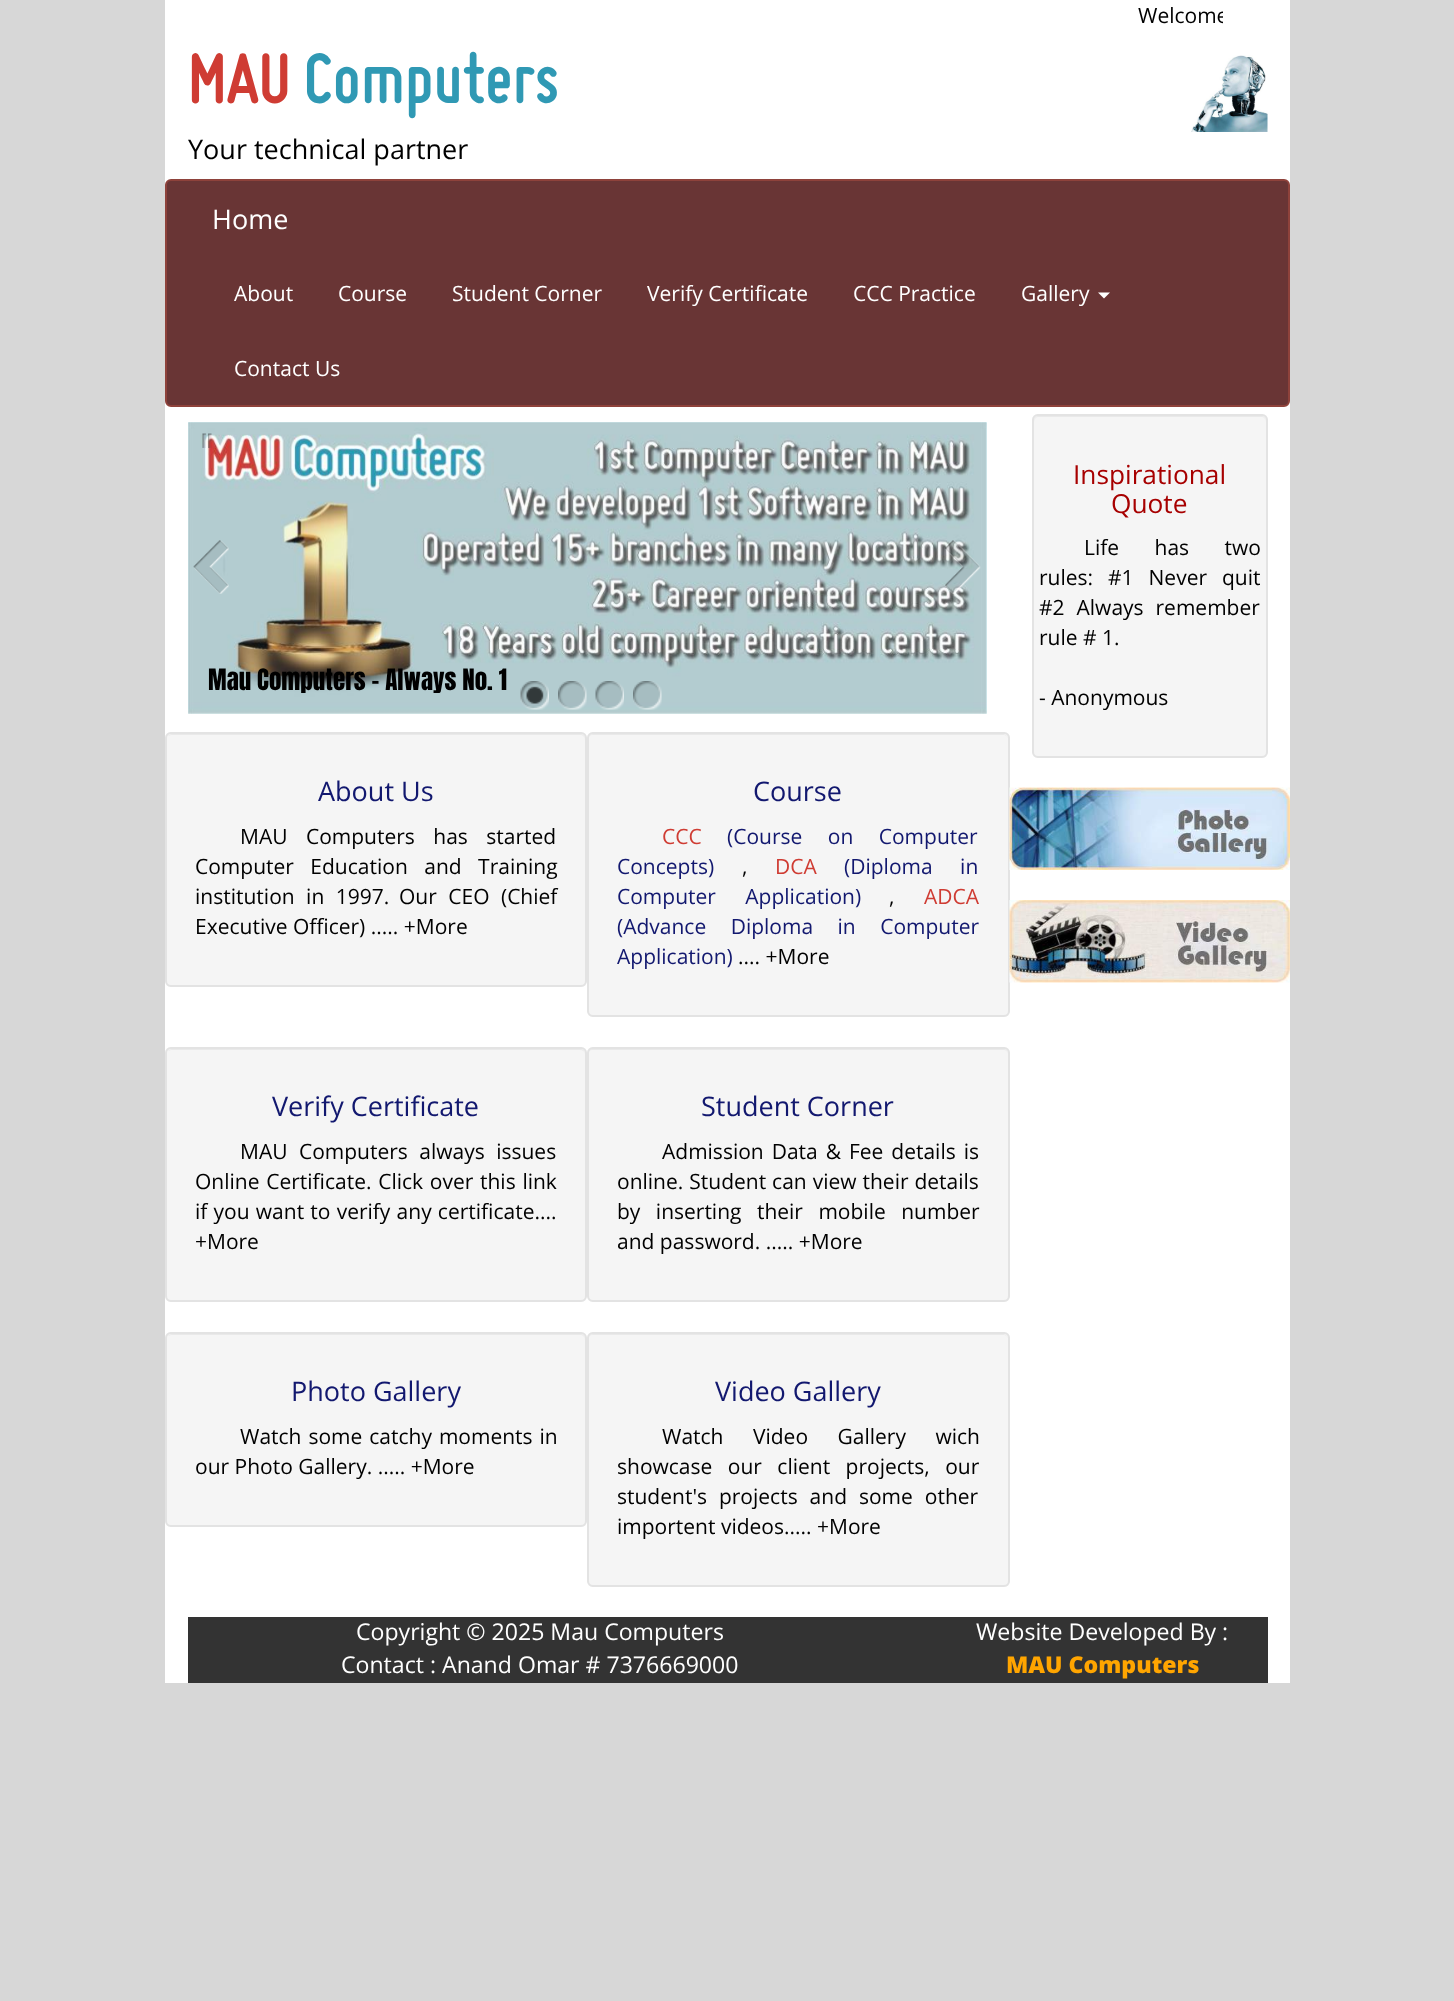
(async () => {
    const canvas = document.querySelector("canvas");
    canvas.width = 1454;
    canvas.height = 2001;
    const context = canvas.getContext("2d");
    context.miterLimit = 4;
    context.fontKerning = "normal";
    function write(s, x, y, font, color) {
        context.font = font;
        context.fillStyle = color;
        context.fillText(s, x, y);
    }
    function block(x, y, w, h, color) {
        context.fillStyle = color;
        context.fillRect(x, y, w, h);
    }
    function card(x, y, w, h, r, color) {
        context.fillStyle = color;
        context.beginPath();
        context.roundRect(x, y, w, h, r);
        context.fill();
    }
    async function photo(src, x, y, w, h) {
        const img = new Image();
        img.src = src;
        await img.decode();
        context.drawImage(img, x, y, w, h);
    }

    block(0, 0, 1454, 2001, "rgb(215, 215, 215)");
    block(165, 0, 1125, 1683, "rgb(255, 255, 255)");
    context.save();
    context.beginPath();
    context.rect(188, 0, 1035, 30);
    context.clip();
    write("Welcome", 1138, 23, "21px Open Sans", "rgb(0, 0, 0)");
    context.restore();
    write("MAU", 188, 102, "bold 74.5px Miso", "rgb(207, 60, 51)");
    write("Computers", 304, 102, "bold 74.5px Miso", "rgb(48, 153, 180)");
    write("Your technical partner", 188, 159, "27px Open Sans", "rgb(0, 0, 0)");
    await photo("media/1.png", 1191, 55, 77, 77);
    context.fillStyle = "rgb(105, 53, 53)";
    context.beginPath();
    context.roundRect(166, 180, 1123, 226, 5);
    context.fill();
    context.strokeStyle = "rgb(142, 66, 59)";
    context.lineWidth = 2;
    context.stroke();
    write("Home", 212, 229, "27px Open Sans", "rgb(255, 255, 255)");
    write("About", 234, 301, "21px Open Sans", "rgb(255, 255, 255)");
    write("Course", 338, 301, "21px Open Sans", "rgb(255, 255, 255)");
    write("Student Corner", 452, 301, "21px Open Sans", "rgb(255, 255, 255)");
    write("Verify Certificate", 647, 301, "21px Open Sans", "rgb(255, 255, 255)");
    write("CCC Practice", 853, 301, "21px Open Sans", "rgb(255, 255, 255)");
    write("Gallery", 1021, 301, "21px Open Sans", "rgb(255, 255, 255)");
    context.beginPath();
    context.moveTo(1098, 292.5);
    context.lineTo(1110, 292.5);
    context.lineTo(1104, 298.5);
    context.closePath();
    context.fill();
    write("Contact Us", 234, 376, "21px Open Sans", "rgb(255, 255, 255)");
    card(1032, 414, 236, 344, 6, "rgb(245, 245, 245)");
    context.fillStyle = "rgb(233, 233, 233)";
    context.beginPath();
    context.moveTo(1038, 417);
    context.lineTo(1262, 417);
    context.bezierCurveTo(1264, 417, 1266, 419, 1266, 422);
    context.lineTo(1266, 421);
    context.bezierCurveTo(1266, 418, 1264, 416, 1261, 416);
    context.lineTo(1039, 416);
    context.bezierCurveTo(1036, 416, 1034, 418, 1034, 421);
    context.lineTo(1034, 422);
    context.bezierCurveTo(1034, 419, 1036, 417, 1038, 417);
    context.closePath();
    context.fill();
    context.beginPath();
    context.roundRect(1033, 415, 234, 342, 5);
    context.strokeStyle = "rgb(227, 227, 227)";
    context.stroke();
    write("Inspirational", 1073, 484, "26.25px Open Sans", "rgb(167, 0, 0)");
    write("Quote", 1111, 513, "26.25px Open Sans", "rgb(167, 0, 0)");
    context.wordSpacing = "30px";
    write("Life has two", 1084, 555, "21px Open Sans", "rgb(0, 0, 0)");
    context.wordSpacing = "9.5px";
    write("rules: #1 Never quit", 1039, 585, "21px Open Sans", "rgb(0, 0, 0)");
    context.wordSpacing = "6.5px";
    write("#2 Always remember", 1039, 615, "21px Open Sans", "rgb(0, 0, 0)");
    context.wordSpacing = "0px";
    write("rule # 1.", 1039, 645, "21px Open Sans", "rgb(0, 0, 0)");
    write("- Anonymous", 1039, 705, "21px Open Sans", "rgb(0, 0, 0)");
    card(587, 732, 423, 285, 6, "rgb(245, 245, 245)");
    context.fillStyle = "rgb(233, 233, 233)";
    context.beginPath();
    context.moveTo(592, 735);
    context.lineTo(1004, 735);
    context.bezierCurveTo(1006, 735, 1008, 737, 1008, 740);
    context.bezierCurveTo(1008, 737, 1006, 734, 1003, 734);
    context.lineTo(593, 734);
    context.bezierCurveTo(590, 734, 588, 737, 588, 740);
    context.bezierCurveTo(588, 737, 590, 735, 592, 735);
    context.closePath();
    context.fill();
    context.beginPath();
    context.roundRect(588, 733, 421, 283, 5);
    context.stroke();
    await photo("media/2.png", 1009, 787, 281, 83);
    await photo("media/3.png", 1009, 900, 281, 83);
    await photo("media/4.png", 188, 422, 799, 292);
    await photo("media/5.png", 202, 433, 10, 15);
    await photo("media/6.png", 193, 540, 36, 54);
    await photo("media/7.png", 945, 540, 36, 54);
    await photo("media/8.png", 520, 681, 29, 29);
    await photo("media/9.png", 558, 681, 29, 29);
    await photo("media/10.png", 595, 681, 29, 29);
    await photo("media/11.png", 633, 681, 29, 29);
    write("Mau Computers - Always No. 1", 208, 690, "25px Anton", "rgb(0, 0, 0)");
    card(165, 732, 422, 255, 6, "rgb(245, 245, 245)");
    context.fillStyle = "rgb(233, 233, 233)";
    context.beginPath();
    context.moveTo(171, 735);
    context.lineTo(580, 735);
    context.bezierCurveTo(583, 735, 585, 737, 585, 740);
    context.lineTo(585, 739);
    context.bezierCurveTo(585, 736, 583, 734, 580, 734);
    context.lineTo(172, 734);
    context.bezierCurveTo(170, 734, 169, 735, 168, 736);
    context.closePath();
    context.fill();
    context.beginPath();
    context.roundRect(166, 733, 420, 253, 5);
    context.stroke();
    write("About Us", 318, 801, "27px Open Sans", "rgb(18, 24, 111)");
    context.wordSpacing = "13px";
    write("MAU Computers has started", 240, 844, "21px Open Sans", "rgb(0, 0, 0)");
    context.wordSpacing = "11px";
    write("Computer Education and Training", 195, 874, "21px Open Sans", "rgb(0, 0, 0)");
    context.wordSpacing = "6px";
    write("institution in 1997.", 195, 904, "21px Open Sans", "rgb(0, 0, 0)");
    write("Our CEO (Chief", 399, 904, "21px Open Sans", "rgb(0, 0, 0)");
    context.wordSpacing = "0px";
    write("Executive Officer) ..... +More", 195, 934, "21px Open Sans", "rgb(0, 0, 0)");
    write("Course", 753, 801, "27px Open Sans", "rgb(18, 24, 111)");
    write("CCC", 662, 844, "21px Open Sans", "rgb(207, 60, 51)");
    context.wordSpacing = "20px";
    write("(Course on Computer", 727, 844, "21px Open Sans", "rgb(18, 24, 111)");
    context.wordSpacing = "0px";
    write("Concepts)", 617, 874, "21px Open Sans", "rgb(18, 24, 111)");
    write(",", 742, 874, "21px Open Sans", "rgb(0, 0, 0)");
    write("DCA", 775, 874, "21px Open Sans", "rgb(207, 60, 51)");
    context.wordSpacing = "22px";
    write("(Diploma in", 844, 874, "21px Open Sans", "rgb(18, 24, 111)");
    context.wordSpacing = "24px";
    write("Computer Application)", 617, 904, "21px Open Sans", "rgb(18, 24, 111)");
    context.wordSpacing = "0px";
    write(",", 889, 904, "21px Open Sans", "rgb(0, 0, 0)");
    write("ADCA", 924, 904, "21px Open Sans", "rgb(207, 60, 51)");
    context.wordSpacing = "19px";
    write("(Advance Diploma in Computer", 617, 934, "21px Open Sans", "rgb(18, 24, 111)");
    context.wordSpacing = "0px";
    write("Application)", 617, 964, "21px Open Sans", "rgb(18, 24, 111)");
    write(".... +More", 738, 964, "21px Open Sans", "rgb(0, 0, 0)");
    card(165, 1047, 422, 255, 6, "rgb(245, 245, 245)");
    context.fillStyle = "rgb(233, 233, 233)";
    context.beginPath();
    context.moveTo(171, 1050);
    context.lineTo(580, 1050);
    context.bezierCurveTo(583, 1050, 585, 1052, 585, 1054);
    context.bezierCurveTo(585, 1051, 583, 1049, 580, 1049);
    context.lineTo(172, 1049);
    context.bezierCurveTo(170, 1049, 169, 1050, 168, 1051);
    context.closePath();
    context.fill();
    context.beginPath();
    context.roundRect(166, 1048, 420, 253, 5);
    context.stroke();
    write("Verify Certificate", 272, 1116, "27px Open Sans", "rgb(18, 24, 111)");
    context.wordSpacing = "6px";
    write("MAU Computers always issues", 240, 1159, "21px Open Sans", "rgb(0, 0, 0)");
    context.wordSpacing = "1.25px";
    write("Online Certificate. Click over this link", 195, 1189, "21px Open Sans", "rgb(0, 0, 0)");
    context.wordSpacing = "0.75px";
    write("if you want to verify any certificate....", 195, 1219, "21px Open Sans", "rgb(0, 0, 0)");
    context.wordSpacing = "0px";
    write("+More", 195, 1249, "21px Open Sans", "rgb(0, 0, 0)");
    card(587, 1047, 423, 255, 6, "rgb(245, 245, 245)");
    context.fillStyle = "rgb(233, 233, 233)";
    context.beginPath();
    context.moveTo(592, 1050);
    context.lineTo(1004, 1050);
    context.bezierCurveTo(1006, 1050, 1008, 1052, 1008, 1054);
    context.bezierCurveTo(1008, 1051, 1006, 1049, 1003, 1049);
    context.lineTo(593, 1049);
    context.bezierCurveTo(590, 1049, 588, 1051, 588, 1054);
    context.bezierCurveTo(588, 1052, 590, 1050, 592, 1050);
    context.closePath();
    context.fill();
    context.beginPath();
    context.roundRect(588, 1048, 421, 253, 5);
    context.stroke();
    write("Student Corner", 701, 1116, "27px Open Sans", "rgb(18, 24, 111)");
    context.wordSpacing = "2.5px";
    write("Admission Data & Fee details is", 662, 1159, "21px Open Sans", "rgb(0, 0, 0)");
    context.wordSpacing = "0.5px";
    write("online. Student can view their details", 617, 1189, "21px Open Sans", "rgb(0, 0, 0)");
    context.wordSpacing = "10px";
    write("by inserting their mobile number", 617, 1219, "21px Open Sans", "rgb(0, 0, 0)");
    context.wordSpacing = "0px";
    write("and password. ..... +More", 617, 1249, "21px Open Sans", "rgb(0, 0, 0)");
    card(165, 1332, 422, 195, 6, "rgb(245, 245, 245)");
    context.fillStyle = "rgb(233, 233, 233)";
    context.beginPath();
    context.moveTo(171, 1335);
    context.lineTo(580, 1335);
    context.bezierCurveTo(583, 1335, 585, 1337, 585, 1340);
    context.lineTo(585, 1339);
    context.bezierCurveTo(585, 1336, 583, 1334, 580, 1334);
    context.lineTo(172, 1334);
    context.bezierCurveTo(170, 1334, 169, 1335, 168, 1336);
    context.closePath();
    context.fill();
    context.beginPath();
    context.roundRect(166, 1333, 420, 193, 5);
    context.stroke();
    write("Photo Gallery", 291, 1401, "27px Open Sans", "rgb(18, 24, 111)");
    context.wordSpacing = "1.5px";
    write("Watch some catchy moments in", 240, 1444, "21px Open Sans", "rgb(0, 0, 0)");
    context.wordSpacing = "0px";
    write("our Photo Gallery. ..... +More", 195, 1474, "21px Open Sans", "rgb(0, 0, 0)");
    card(587, 1332, 423, 255, 6, "rgb(245, 245, 245)");
    context.fillStyle = "rgb(233, 233, 233)";
    context.beginPath();
    context.moveTo(592, 1335);
    context.lineTo(1004, 1335);
    context.bezierCurveTo(1006, 1335, 1008, 1337, 1008, 1340);
    context.bezierCurveTo(1008, 1337, 1006, 1334, 1003, 1334);
    context.lineTo(593, 1334);
    context.bezierCurveTo(590, 1334, 588, 1337, 588, 1340);
    context.bezierCurveTo(588, 1337, 590, 1335, 592, 1335);
    context.closePath();
    context.fill();
    context.beginPath();
    context.roundRect(588, 1333, 421, 253, 5);
    context.stroke();
    write("Video Gallery", 715, 1401, "27px Open Sans", "rgb(18, 24, 111)");
    context.wordSpacing = "24px";
    write("Watch Video Gallery wich", 662, 1444, "21px Open Sans", "rgb(0, 0, 0)");
    context.wordSpacing = "10px";
    write("showcase our client projects, our", 617, 1474, "21px Open Sans", "rgb(0, 0, 0)");
    context.wordSpacing = "6.5px";
    write("student's projects and some other", 617, 1504, "21px Open Sans", "rgb(0, 0, 0)");
    context.wordSpacing = "0px";
    write("importent videos..... +More", 617, 1534, "21px Open Sans", "rgb(0, 0, 0)");
    block(188, 1617, 1080, 66, "rgb(51, 51, 51)");
    write("Copyright © 2025 Mau Computers", 356, 1640, "23.1px Open Sans", "rgb(255, 255, 255)");
    write("Contact : Anand Omar # 7376669000", 341, 1673, "23.1px Open Sans", "rgb(255, 255, 255)");
    write("Website Developed By :", 976, 1640, "23.1px Open Sans", "rgb(255, 255, 255)");
    write("MAU Computers", 1006, 1673, "800 23.1px Open Sans", "rgb(255, 165, 0)");
})();
